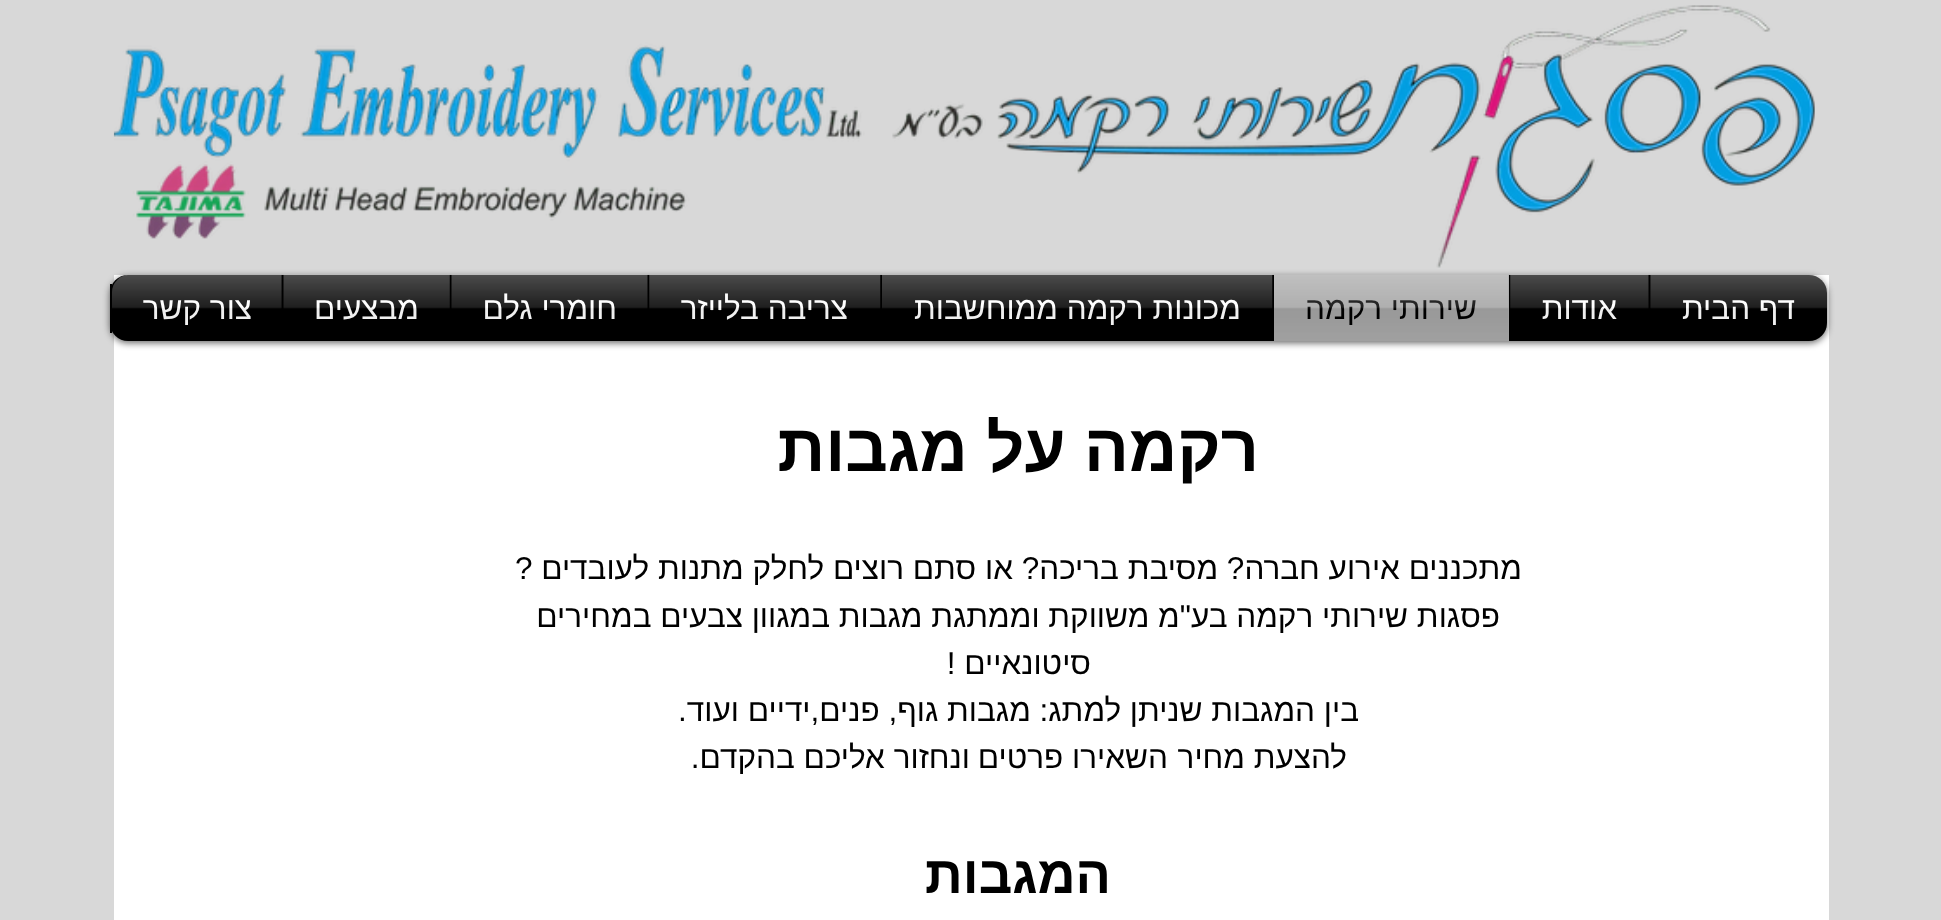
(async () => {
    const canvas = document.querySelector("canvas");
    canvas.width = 1941;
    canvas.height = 920;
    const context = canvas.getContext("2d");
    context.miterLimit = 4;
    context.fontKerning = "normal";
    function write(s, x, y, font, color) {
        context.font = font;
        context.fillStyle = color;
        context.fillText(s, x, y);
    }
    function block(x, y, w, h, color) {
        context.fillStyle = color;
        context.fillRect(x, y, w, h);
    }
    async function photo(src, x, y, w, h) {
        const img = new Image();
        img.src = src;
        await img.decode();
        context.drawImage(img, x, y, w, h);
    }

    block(0, 0, 1941, 920, "rgb(216, 216, 216)");
    await photo("media/1.png", 113, 5, 1702, 263);
    block(114, 275, 1715, 645, "rgb(255, 255, 255)");
    context.fillStyle = "rgba(0, 0, 0, 0.6)";
    context.filter = "blur(3.5px)";
    context.beginPath();
    context.roundRect(110, 277, 1717, 66, 18);
    context.fill();
    context.filter = "none";
    await photo("media/2.png", 112, 275, 1715, 56);
    context.fillStyle = "rgb(0, 0, 0)";
    context.beginPath();
    context.roundRect(1649, 275, 178, 66, [0, 18, 18, 0]);
    context.fill();
    context.direction = "rtl";
    write("דף הבית", 1795, 319, "31.5px Liberation Sans", "rgb(255, 255, 255)");
    await photo("media/3.png", 1650, 275, 177, 50);
    block(1509, 275, 140, 66, "rgb(0, 0, 0)");
    write("אודות", 1617, 319, "31.5px Liberation Sans", "rgb(255, 255, 255)");
    await photo("media/4.png", 1510, 274, 139, 45);
    block(1274, 275, 235, 66, "rgb(165, 165, 165)");
    block(282, 275, 992, 66, "rgb(0, 0, 0)");
    write("שירותי רקמה", 1477, 319, "31.5px Liberation Sans", "rgb(0, 0, 0)");
    await photo("media/5.png", 1274, 274, 235, 67);
    write("מכונות רקמה ממוחשבות", 1241, 319, "31.5px Liberation Sans", "rgb(255, 255, 255)");
    await photo("media/6.png", 882, 274, 391, 51);
    write("צריבה בלייזר", 848, 319, "31.5px Liberation Sans", "rgb(255, 255, 255)");
    await photo("media/7.png", 649, 274, 232, 46);
    write("חומרי גלם", 617, 319, "31.5px Liberation Sans", "rgb(255, 255, 255)");
    await photo("media/8.png", 451, 274, 197, 46);
    write("מבצעים", 419, 319, "31.5px Liberation Sans", "rgb(255, 255, 255)");
    await photo("media/9.png", 283, 274, 167, 46);
    context.fillStyle = "rgb(0, 0, 0)";
    context.beginPath();
    context.roundRect(110, 275, 172, 66, [18, 0, 0, 18]);
    context.fill();
    block(110, 284, 2, 49, "rgb(0, 0, 0)");
    write("צור קשר", 252, 319, "31.5px Liberation Sans", "rgb(255, 255, 255)");
    await photo("media/10.png", 112, 275, 170, 50);
    write("רקמה על מגבות", 1259, 471, "bold 66.5px Liberation Sans", "rgb(0, 0, 0)");
    write("מתכננים אירוע חברה? מסיבת בריכה? או סתם רוצים לחלק מתנות לעובדים ?", 1522, 579, "31.5px Liberation Sans", "rgb(0, 0, 0)");
    write("פסגות שירותי רקמה בע\"מ משווקת וממתגת מגבות במגוון צבעים במחירים", 1500, 627, "31.5px Liberation Sans", "rgb(0, 0, 0)");
    write("סיטונאיים !", 1091, 674, "31.5px Liberation Sans", "rgb(0, 0, 0)");
    write("בין המגבות שניתן למתג: מגבות גוף, פנים,ידיים ועוד.", 1359, 721, "31.5px Liberation Sans", "rgb(0, 0, 0)");
    write("להצעת מחיר", 1347, 768, "31.5px Liberation Sans", "rgb(0, 0, 0)");
    write("השאירו פרטים", 1168, 768, "31.5px Liberation Sans", "rgb(0, 0, 0)");
    write("ונחזור אליכם בהקדם.", 970, 768, "31.5px Liberation Sans", "rgb(0, 0, 0)");
    write("המגבות", 1111, 893, "bold 52.5px Liberation Sans", "rgb(0, 0, 0)");
})();
